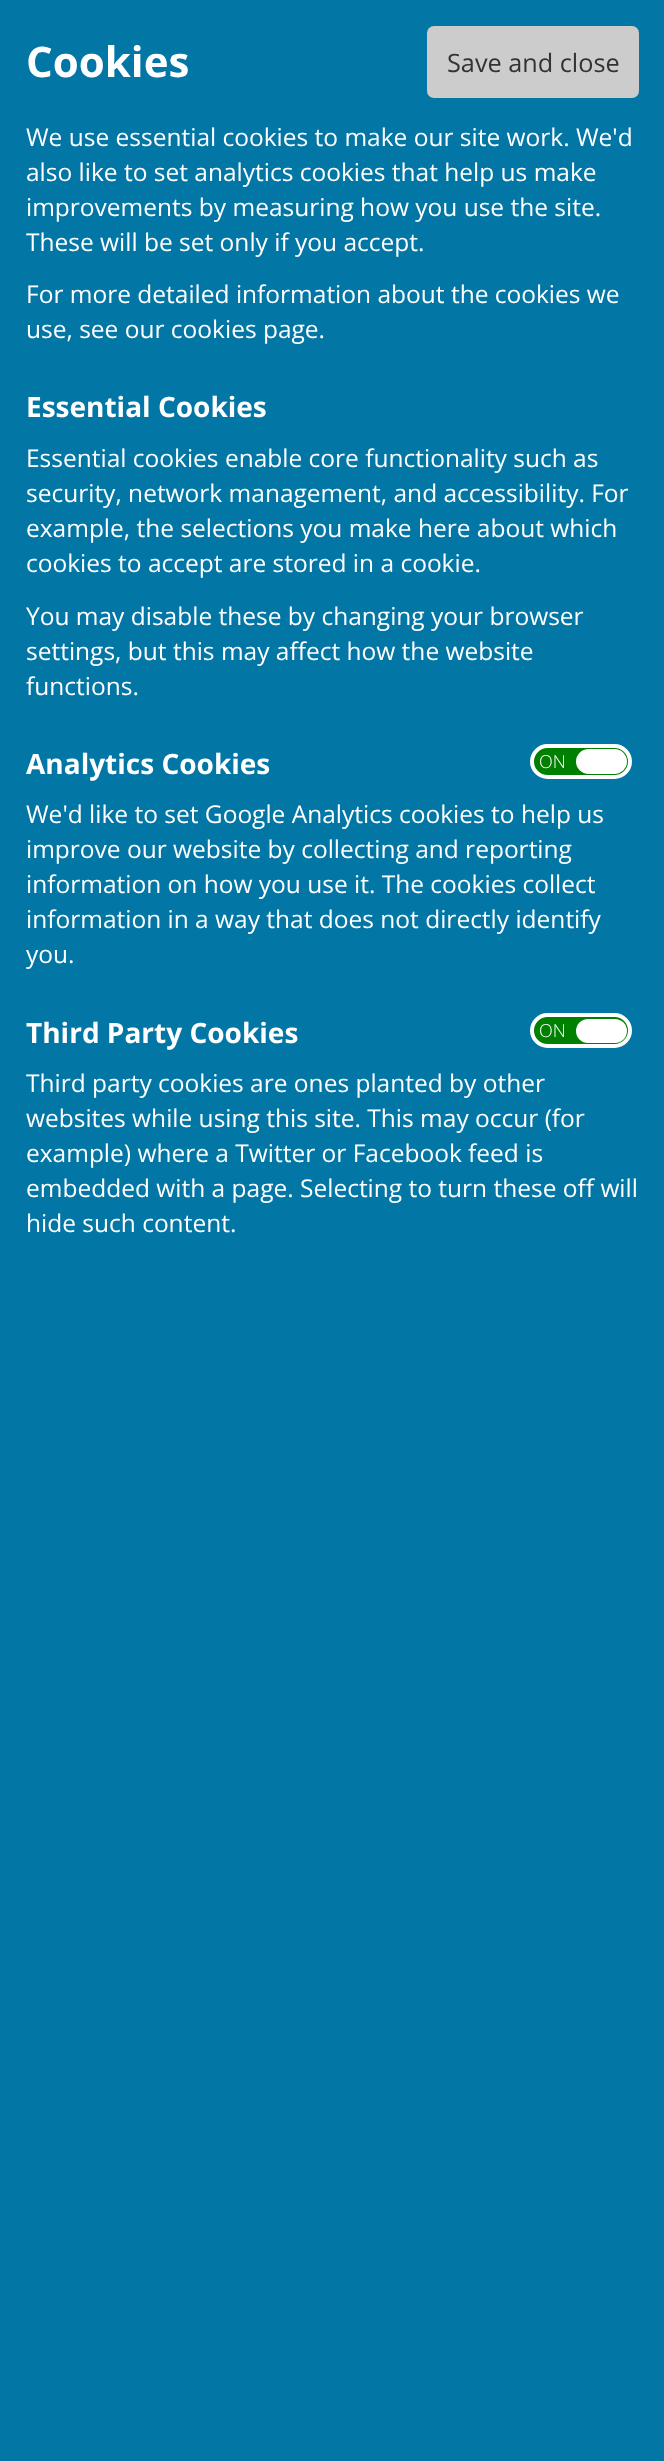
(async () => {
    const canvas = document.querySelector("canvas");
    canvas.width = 664;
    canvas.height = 2461;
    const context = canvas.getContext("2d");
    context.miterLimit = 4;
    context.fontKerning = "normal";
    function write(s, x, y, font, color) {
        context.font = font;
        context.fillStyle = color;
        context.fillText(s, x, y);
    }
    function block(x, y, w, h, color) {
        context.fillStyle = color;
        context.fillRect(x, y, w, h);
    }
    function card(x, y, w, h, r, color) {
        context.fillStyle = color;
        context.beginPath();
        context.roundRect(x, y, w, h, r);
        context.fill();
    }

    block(0, 0, 664, 2461, "rgb(2, 118, 165)");
    write("Cookies", 26, 77, "bold 42px Open Sans", "rgb(255, 255, 255)");
    card(427, 26, 212, 72, 7, "rgb(204, 204, 204)");
    write("Save and close", 447, 72, "25.25px Open Sans", "rgb(51, 51, 51)");
    write("We use essential cookies to make our site work. We'd", 26, 146, "24.5px Open Sans", "rgb(255, 255, 255)");
    write("also like to set analytics cookies that help us make", 26, 181, "24.5px Open Sans", "rgb(255, 255, 255)");
    write("improvements by measuring how you use the site.", 26, 216, "24.5px Open Sans", "rgb(255, 255, 255)");
    write("These will be set only if you accept.", 26, 251, "24.5px Open Sans", "rgb(255, 255, 255)");
    write("For more detailed information about the cookies we", 26, 303, "24.5px Open Sans", "rgb(255, 255, 255)");
    write("use, see our cookies page.", 26, 338, "24.5px Open Sans", "rgb(255, 255, 255)");
    write("Essential Cookies", 26, 417, "bold 28px Open Sans", "rgb(255, 255, 255)");
    write("Essential cookies enable core functionality such as", 26, 467, "24.5px Open Sans", "rgb(255, 255, 255)");
    write("security, network management, and accessibility. For", 26, 502, "24.5px Open Sans", "rgb(255, 255, 255)");
    write("example, the selections you make here about which", 26, 537, "24.5px Open Sans", "rgb(255, 255, 255)");
    write("cookies to accept are stored in a cookie.", 26, 572, "24.5px Open Sans", "rgb(255, 255, 255)");
    write("You may disable these by changing your browser", 26, 625, "24.5px Open Sans", "rgb(255, 255, 255)");
    write("settings, but this may affect how the website", 26, 660, "24.5px Open Sans", "rgb(255, 255, 255)");
    write("functions.", 26, 695, "24.5px Open Sans", "rgb(255, 255, 255)");
    write("Analytics Cookies", 26, 774, "bold 28px Open Sans", "rgb(255, 255, 255)");
    context.fillStyle = "rgb(0, 128, 0)";
    context.beginPath();
    context.roundRect(532, 746, 98, 31, 15.5);
    context.fill();
    context.strokeStyle = "rgb(255, 255, 255)";
    context.lineWidth = 4;
    context.stroke();
    write("ON", 539, 768, "300 18px Open Sans", "rgb(255, 255, 255)");
    card(576, 749, 51, 25, 12.5, "rgb(255, 255, 255)");
    write("We'd like to set Google Analytics cookies to help us", 26, 823, "24.5px Open Sans", "rgb(255, 255, 255)");
    write("improve our website by collecting and reporting", 26, 858, "24.5px Open Sans", "rgb(255, 255, 255)");
    write("information on how you use it. The cookies collect", 26, 893, "24.5px Open Sans", "rgb(255, 255, 255)");
    write("information in a way that does not directly identify", 26, 928, "24.5px Open Sans", "rgb(255, 255, 255)");
    write("you.", 26, 963, "24.5px Open Sans", "rgb(255, 255, 255)");
    write("Third Party Cookies", 26, 1043, "bold 28px Open Sans", "rgb(255, 255, 255)");
    context.fillStyle = "rgb(0, 128, 0)";
    context.beginPath();
    context.roundRect(532, 1015, 98, 31, 15.5);
    context.fill();
    context.stroke();
    write("ON", 539, 1037, "300 18px Open Sans", "rgb(255, 255, 255)");
    card(576, 1019, 51, 24, 12, "rgb(255, 255, 255)");
    write("Third party cookies are ones planted by other", 26, 1092, "24.5px Open Sans", "rgb(255, 255, 255)");
    write("websites while using this site. This may occur (for", 26, 1127, "24.5px Open Sans", "rgb(255, 255, 255)");
    write("example) where a Twitter or Facebook feed is", 26, 1162, "24.5px Open Sans", "rgb(255, 255, 255)");
    write("embedded with a page. Selecting to turn these off will", 26, 1197, "24.5px Open Sans", "rgb(255, 255, 255)");
    write("hide such content.", 26, 1232, "24.5px Open Sans", "rgb(255, 255, 255)");
})();
